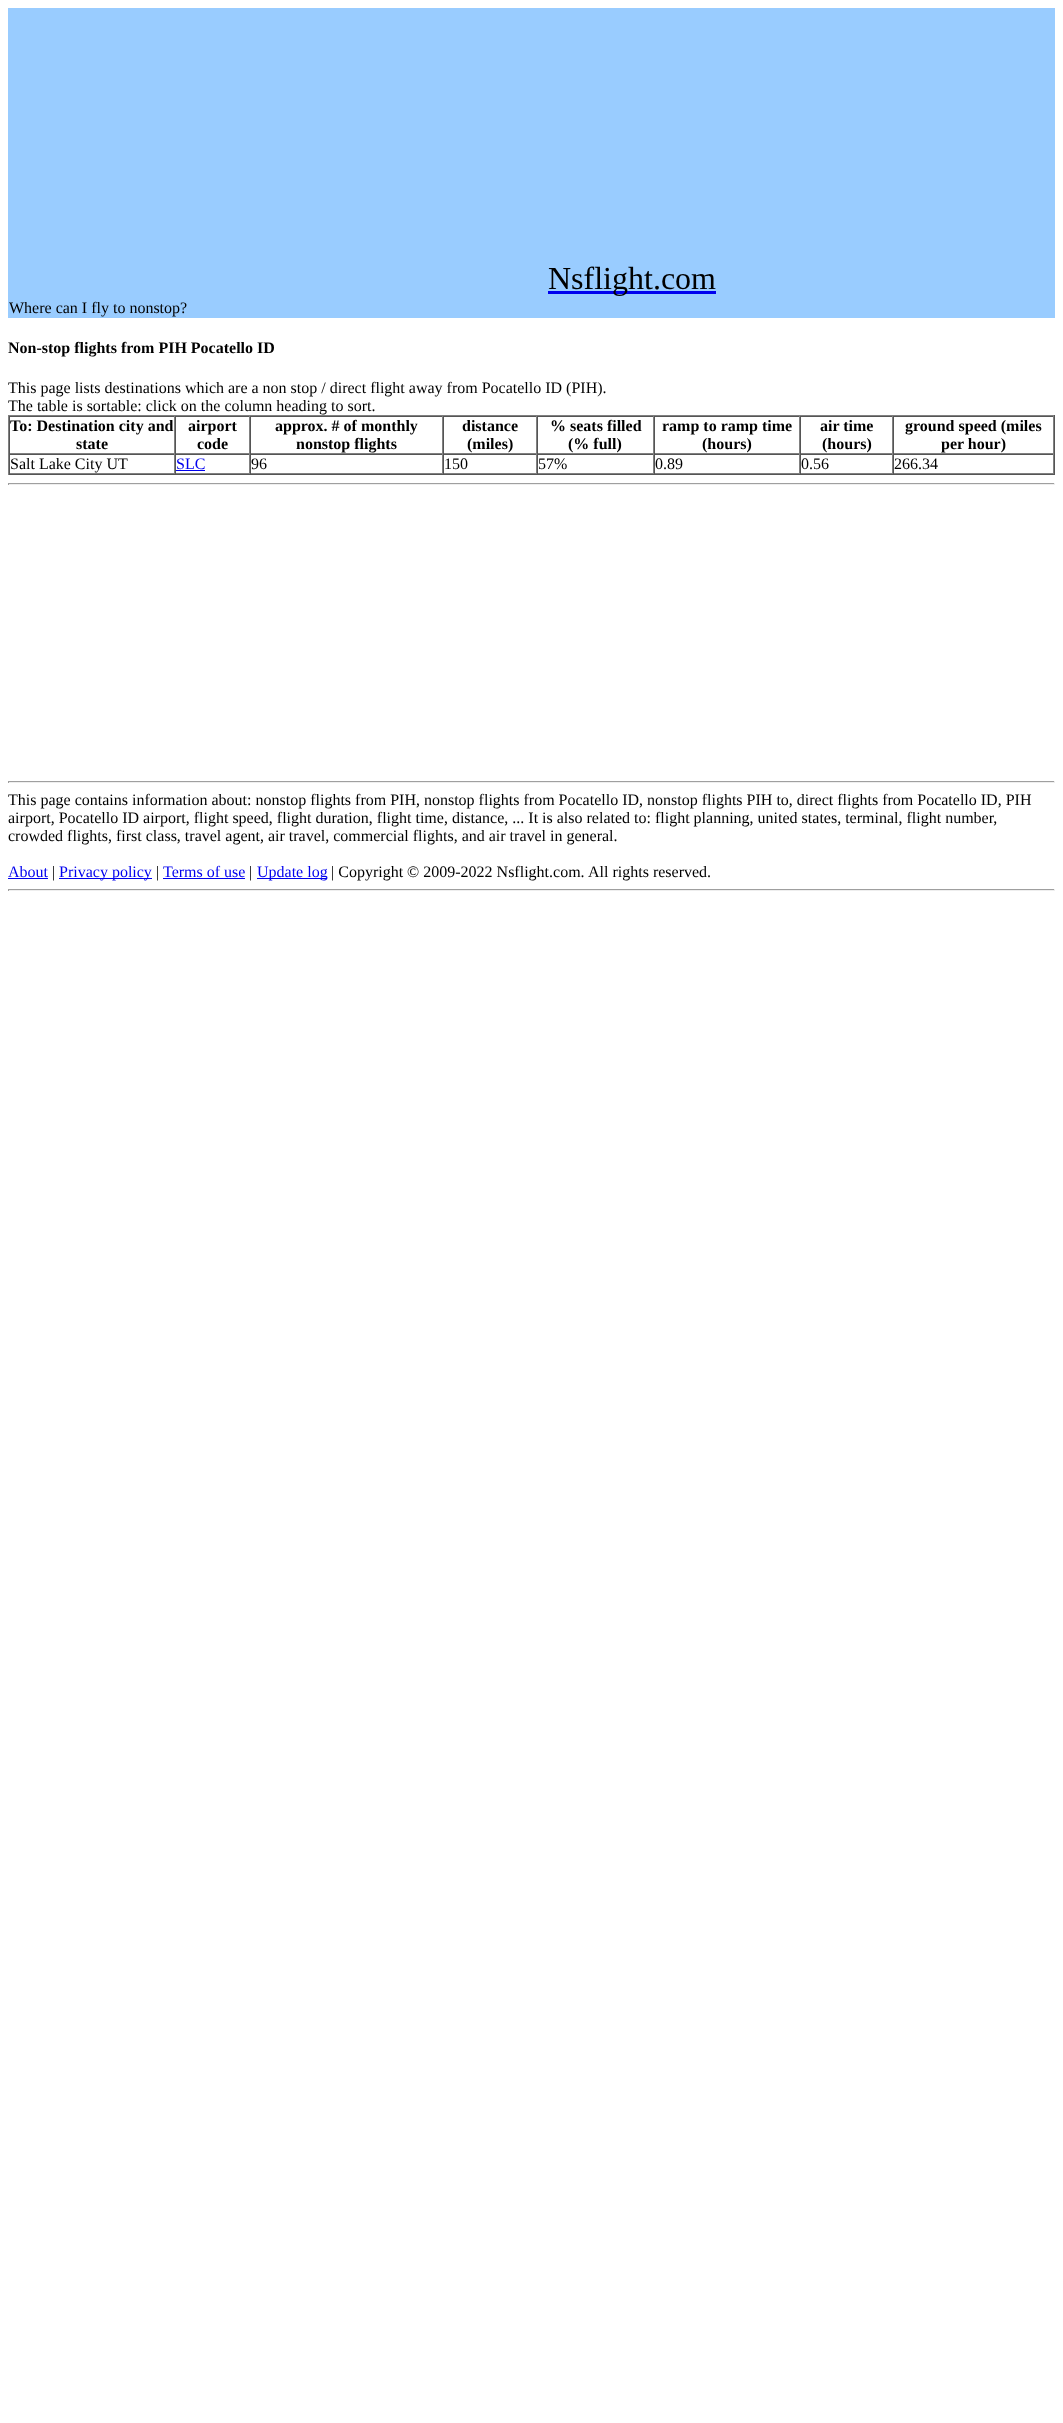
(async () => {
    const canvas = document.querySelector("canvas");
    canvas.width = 1063;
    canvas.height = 2423;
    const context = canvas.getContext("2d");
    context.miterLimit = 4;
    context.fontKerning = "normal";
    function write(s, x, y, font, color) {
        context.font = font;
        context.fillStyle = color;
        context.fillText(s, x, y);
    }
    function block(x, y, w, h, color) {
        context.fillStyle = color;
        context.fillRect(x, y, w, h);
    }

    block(0, 0, 1063, 2423, "rgb(255, 255, 255)");
    block(8, 8, 1047, 310, "rgb(153, 204, 255)");
    block(548, 291, 168, 3, "rgb(0, 0, 238)");
    write("Nsflight.com", 548, 289, "32px Liberation Serif", "rgb(0, 0, 0)");
    write("Where can I fly to nonstop?", 9, 313, "16px Liberation Serif", "rgb(0, 0, 0)");
    write("Non-stop flights from PIH Pocatello ID", 8, 353, "bold 16px Liberation Serif", "rgb(0, 0, 0)");
    write("This page lists destinations which are a non stop / direct flight away from Pocatello ID (PIH).", 8, 393, "16px Liberation Serif", "rgb(0, 0, 0)");
    write("The table is sortable: click on the column heading to sort.", 8, 411, "16px Liberation Serif", "rgb(0, 0, 0)");
    block(8, 415, 1047, 1, "rgb(128, 128, 128)");
    block(1054, 415, 1, 60, "rgb(85, 85, 85)");
    block(8, 474, 1047, 1, "rgb(85, 85, 85)");
    block(8, 415, 1, 60, "rgb(128, 128, 128)");
    block(9, 416, 1045, 1, "rgb(85, 85, 85)");
    block(174, 416, 1, 38, "rgb(128, 128, 128)");
    block(9, 453, 166, 1, "rgb(128, 128, 128)");
    block(9, 416, 1, 38, "rgb(85, 85, 85)");
    write("To: Destination city and", 10, 431, "bold 16px Liberation Serif", "rgb(0, 0, 0)");
    write("state", 76, 449, "bold 16px Liberation Serif", "rgb(0, 0, 0)");
    block(249, 416, 1, 38, "rgb(128, 128, 128)");
    block(175, 453, 75, 1, "rgb(128, 128, 128)");
    block(175, 416, 1, 38, "rgb(85, 85, 85)");
    write("airport", 188, 431, "bold 16px Liberation Serif", "rgb(0, 0, 0)");
    write("code", 197, 449, "bold 16px Liberation Serif", "rgb(0, 0, 0)");
    block(442, 416, 1, 38, "rgb(128, 128, 128)");
    block(250, 453, 193, 1, "rgb(128, 128, 128)");
    block(250, 416, 1, 38, "rgb(85, 85, 85)");
    write("approx. # of monthly", 275, 431, "bold 16px Liberation Serif", "rgb(0, 0, 0)");
    write("nonstop flights", 296, 449, "bold 16px Liberation Serif", "rgb(0, 0, 0)");
    block(536, 416, 1, 38, "rgb(128, 128, 128)");
    block(443, 453, 94, 1, "rgb(128, 128, 128)");
    block(443, 416, 1, 38, "rgb(85, 85, 85)");
    write("distance", 462, 431, "bold 16px Liberation Serif", "rgb(0, 0, 0)");
    write("(miles)", 467, 449, "bold 16px Liberation Serif", "rgb(0, 0, 0)");
    block(653, 416, 1, 38, "rgb(128, 128, 128)");
    block(537, 453, 117, 1, "rgb(128, 128, 128)");
    block(537, 416, 1, 38, "rgb(85, 85, 85)");
    write("% seats filled", 550, 431, "bold 16px Liberation Serif", "rgb(0, 0, 0)");
    write("(% full)", 568, 449, "bold 16px Liberation Serif", "rgb(0, 0, 0)");
    block(799, 416, 1, 38, "rgb(128, 128, 128)");
    block(654, 453, 146, 1, "rgb(128, 128, 128)");
    block(654, 416, 1, 38, "rgb(85, 85, 85)");
    write("ramp to ramp time", 662, 431, "bold 16px Liberation Serif", "rgb(0, 0, 0)");
    write("(hours)", 702, 449, "bold 16px Liberation Serif", "rgb(0, 0, 0)");
    block(892, 416, 1, 38, "rgb(128, 128, 128)");
    block(800, 453, 93, 1, "rgb(128, 128, 128)");
    block(800, 416, 1, 38, "rgb(85, 85, 85)");
    write("air time", 820, 431, "bold 16px Liberation Serif", "rgb(0, 0, 0)");
    write("(hours)", 822, 449, "bold 16px Liberation Serif", "rgb(0, 0, 0)");
    block(1053, 416, 1, 38, "rgb(128, 128, 128)");
    block(893, 453, 161, 1, "rgb(128, 128, 128)");
    block(893, 416, 1, 38, "rgb(85, 85, 85)");
    write("ground speed (miles", 905, 431, "bold 16px Liberation Serif", "rgb(0, 0, 0)");
    write("per hour)", 941, 449, "bold 16px Liberation Serif", "rgb(0, 0, 0)");
    block(9, 454, 1045, 1, "rgb(85, 85, 85)");
    block(174, 454, 1, 20, "rgb(128, 128, 128)");
    block(9, 473, 166, 1, "rgb(128, 128, 128)");
    block(9, 454, 1, 20, "rgb(85, 85, 85)");
    write("Salt Lake City UT", 10, 469, "16px Liberation Serif", "rgb(0, 0, 0)");
    block(249, 454, 1, 20, "rgb(128, 128, 128)");
    block(175, 473, 75, 1, "rgb(128, 128, 128)");
    block(175, 454, 1, 20, "rgb(85, 85, 85)");
    write("SLC", 176, 469, "16px Liberation Serif", "rgb(0, 0, 238)");
    block(176, 470, 29, 1, "rgb(0, 0, 238)");
    block(442, 454, 1, 20, "rgb(128, 128, 128)");
    block(250, 473, 193, 1, "rgb(128, 128, 128)");
    block(250, 454, 1, 20, "rgb(85, 85, 85)");
    write("96", 251, 469, "16px Liberation Serif", "rgb(0, 0, 0)");
    block(536, 454, 1, 20, "rgb(128, 128, 128)");
    block(443, 473, 94, 1, "rgb(128, 128, 128)");
    block(443, 454, 1, 20, "rgb(85, 85, 85)");
    write("150", 444, 469, "16px Liberation Serif", "rgb(0, 0, 0)");
    block(653, 454, 1, 20, "rgb(128, 128, 128)");
    block(537, 473, 117, 1, "rgb(128, 128, 128)");
    block(537, 454, 1, 20, "rgb(85, 85, 85)");
    write("57%", 538, 469, "16px Liberation Serif", "rgb(0, 0, 0)");
    block(799, 454, 1, 20, "rgb(128, 128, 128)");
    block(654, 473, 146, 1, "rgb(128, 128, 128)");
    block(654, 454, 1, 20, "rgb(85, 85, 85)");
    write("0.89", 655, 469, "16px Liberation Serif", "rgb(0, 0, 0)");
    block(892, 454, 1, 20, "rgb(128, 128, 128)");
    block(800, 473, 93, 1, "rgb(128, 128, 128)");
    block(800, 454, 1, 20, "rgb(85, 85, 85)");
    write("0.56", 801, 469, "16px Liberation Serif", "rgb(0, 0, 0)");
    block(1053, 454, 1, 20, "rgb(128, 128, 128)");
    block(893, 473, 161, 1, "rgb(128, 128, 128)");
    block(893, 454, 1, 20, "rgb(85, 85, 85)");
    write("266.34", 894, 469, "16px Liberation Serif", "rgb(0, 0, 0)");
    block(8, 483, 1047, 1, "rgb(159, 159, 159)");
    block(1054, 483, 1, 2, "rgb(238, 238, 238)");
    block(8, 484, 1047, 1, "rgb(238, 238, 238)");
    block(8, 483, 1, 2, "rgb(159, 159, 159)");
    block(8, 781, 1047, 1, "rgb(159, 159, 159)");
    block(1054, 781, 1, 2, "rgb(238, 238, 238)");
    block(8, 782, 1047, 1, "rgb(238, 238, 238)");
    block(8, 781, 1, 2, "rgb(159, 159, 159)");
    write("This page contains information about: nonstop flights from PIH, nonstop flights from Pocatello ID, nonstop flights PIH to, direct flights from Pocatello ID, PIH", 8, 805, "16px Liberation Serif", "rgb(0, 0, 0)");
    write("airport, Pocatello ID airport, flight speed, flight duration, flight time, distance, ... It is also related to: flight planning, united states, terminal, flight number,", 8, 823, "16px Liberation Serif", "rgb(0, 0, 0)");
    write("crowded flights, first class, travel agent, air travel, commercial flights, and air travel in general.", 8, 841, "16px Liberation Serif", "rgb(0, 0, 0)");
    write("About", 8, 877, "16px Liberation Serif", "rgb(0, 0, 238)");
    block(8, 878, 40, 1, "rgb(0, 0, 238)");
    write("|", 52, 877, "16px Liberation Serif", "rgb(0, 0, 0)");
    block(59, 878, 93, 1, "rgb(0, 0, 238)");
    write("Privacy policy", 59, 877, "16px Liberation Serif", "rgb(0, 0, 238)");
    write("|", 156, 877, "16px Liberation Serif", "rgb(0, 0, 0)");
    write("Terms of use", 163, 877, "16px Liberation Serif", "rgb(0, 0, 238)");
    block(163, 878, 82, 1, "rgb(0, 0, 238)");
    write("|", 249, 877, "16px Liberation Serif", "rgb(0, 0, 0)");
    block(257, 878, 70, 1, "rgb(0, 0, 238)");
    write("Update log", 257, 877, "16px Liberation Serif", "rgb(0, 0, 238)");
    write("| Copyright © 2009-2022 Nsflight.com.", 331, 877, "16px Liberation Serif", "rgb(0, 0, 0)");
    write("All rights reserved.", 588, 877, "16px Liberation Serif", "rgb(0, 0, 0)");
    block(8, 889, 1047, 1, "rgb(159, 159, 159)");
    block(1054, 889, 1, 2, "rgb(238, 238, 238)");
    block(8, 890, 1047, 1, "rgb(238, 238, 238)");
    block(8, 889, 1, 2, "rgb(159, 159, 159)");
})();
